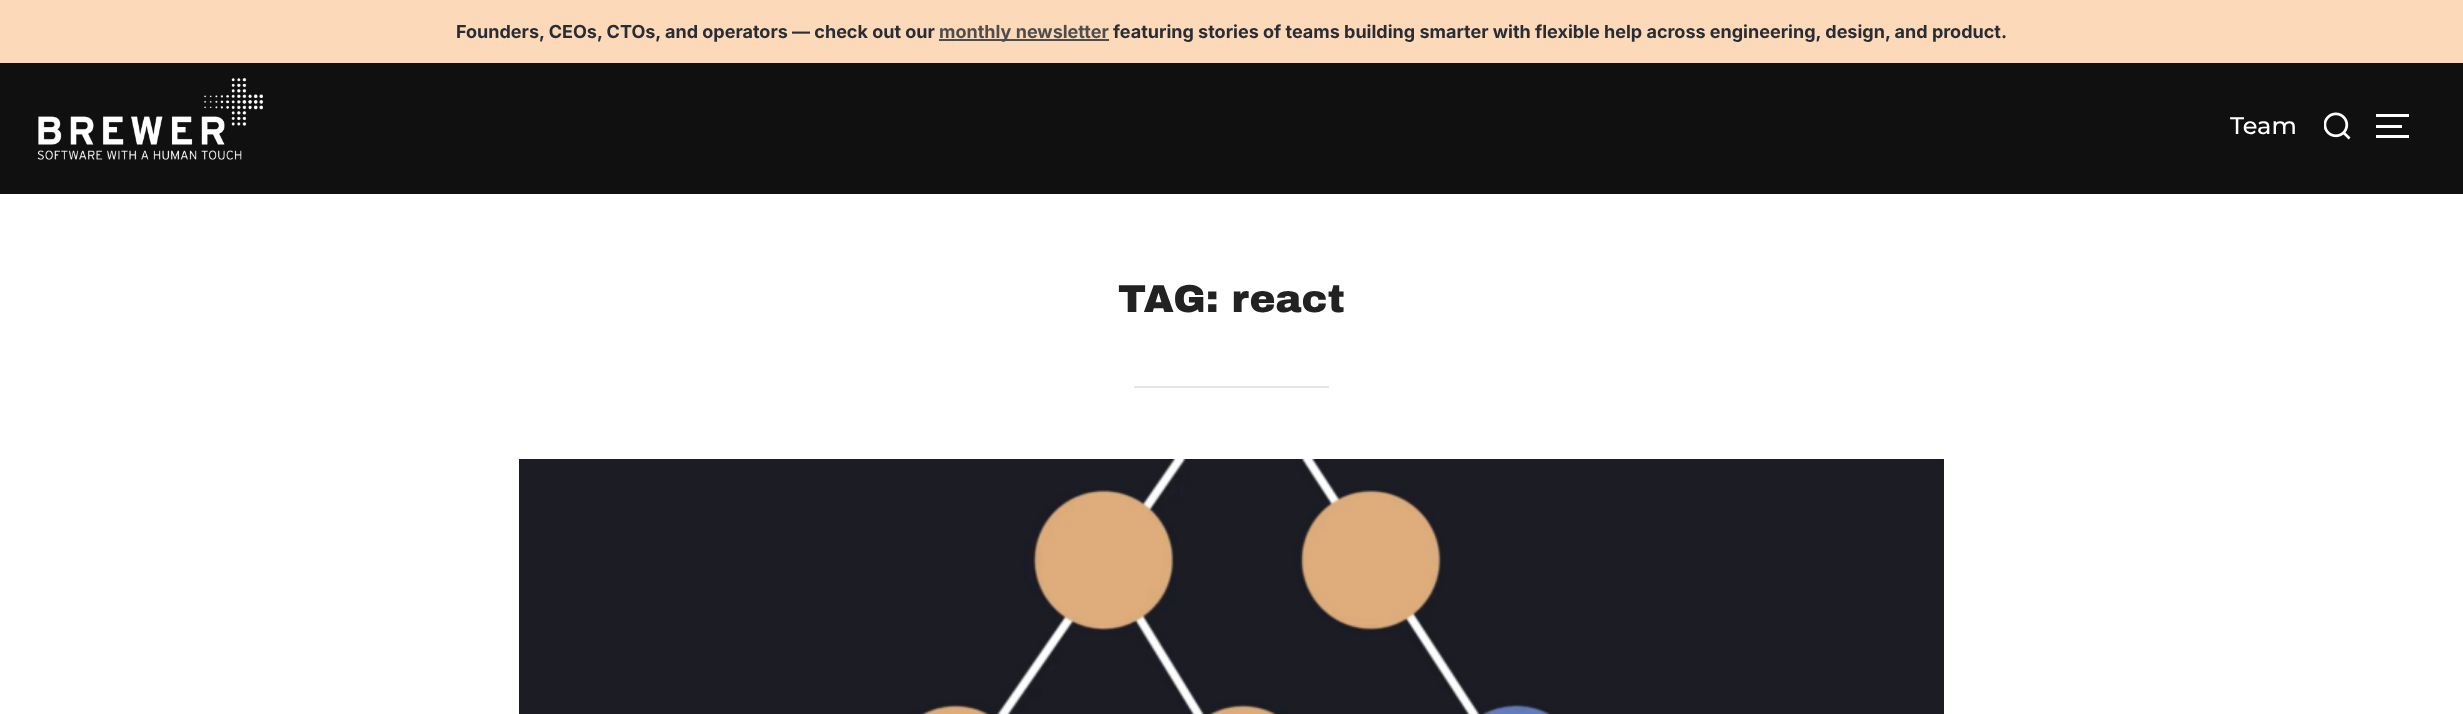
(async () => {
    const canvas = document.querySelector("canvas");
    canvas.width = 2463;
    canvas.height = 714;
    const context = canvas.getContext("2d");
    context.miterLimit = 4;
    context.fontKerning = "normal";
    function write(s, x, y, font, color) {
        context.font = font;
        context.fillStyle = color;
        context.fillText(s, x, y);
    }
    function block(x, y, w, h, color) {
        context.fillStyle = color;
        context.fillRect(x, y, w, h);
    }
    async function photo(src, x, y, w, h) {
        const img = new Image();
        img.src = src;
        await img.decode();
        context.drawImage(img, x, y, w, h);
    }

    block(0, 0, 2463, 714, "rgb(255, 255, 255)");
    block(0, 0, 2463, 63, "rgb(252, 217, 185)");
    write("Founders, CEOs, CTOs, and operators — check out our", 456, 38, "bold 18px Inter", "rgb(40, 44, 53)");
    block(939, 39, 170, 2, "rgb(77, 77, 77)");
    write("monthly newsletter", 939, 38, "bold 18px Inter", "rgb(77, 77, 77)");
    write("featuring stories of teams building smarter with flexible help across engineering, design, and product.", 1113, 38, "bold 18px Inter", "rgb(40, 44, 53)");
    block(0, 63, 2463, 131, "rgb(16, 16, 16)");
    await photo("media/1.png", 37, 78, 226, 82);
    write("Team", 2230, 134, "500 24px Montserrat", "rgb(255, 255, 255)");
    await photo("media/2.png", 2324, 112, 27, 28);
    block(2376, 114, 33, 3, "rgb(255, 255, 255)");
    block(2376, 125, 26, 3, "rgb(255, 255, 255)");
    block(2376, 135, 33, 3, "rgb(255, 255, 255)");
    write("TAG: react", 1118, 312, "900 39px Archivo Black", "rgb(34, 34, 34)");
    block(1134, 386, 195, 2, "rgb(230, 230, 230)");
    await photo("media/3.png", 519, 459, 1425, 255);
})();
